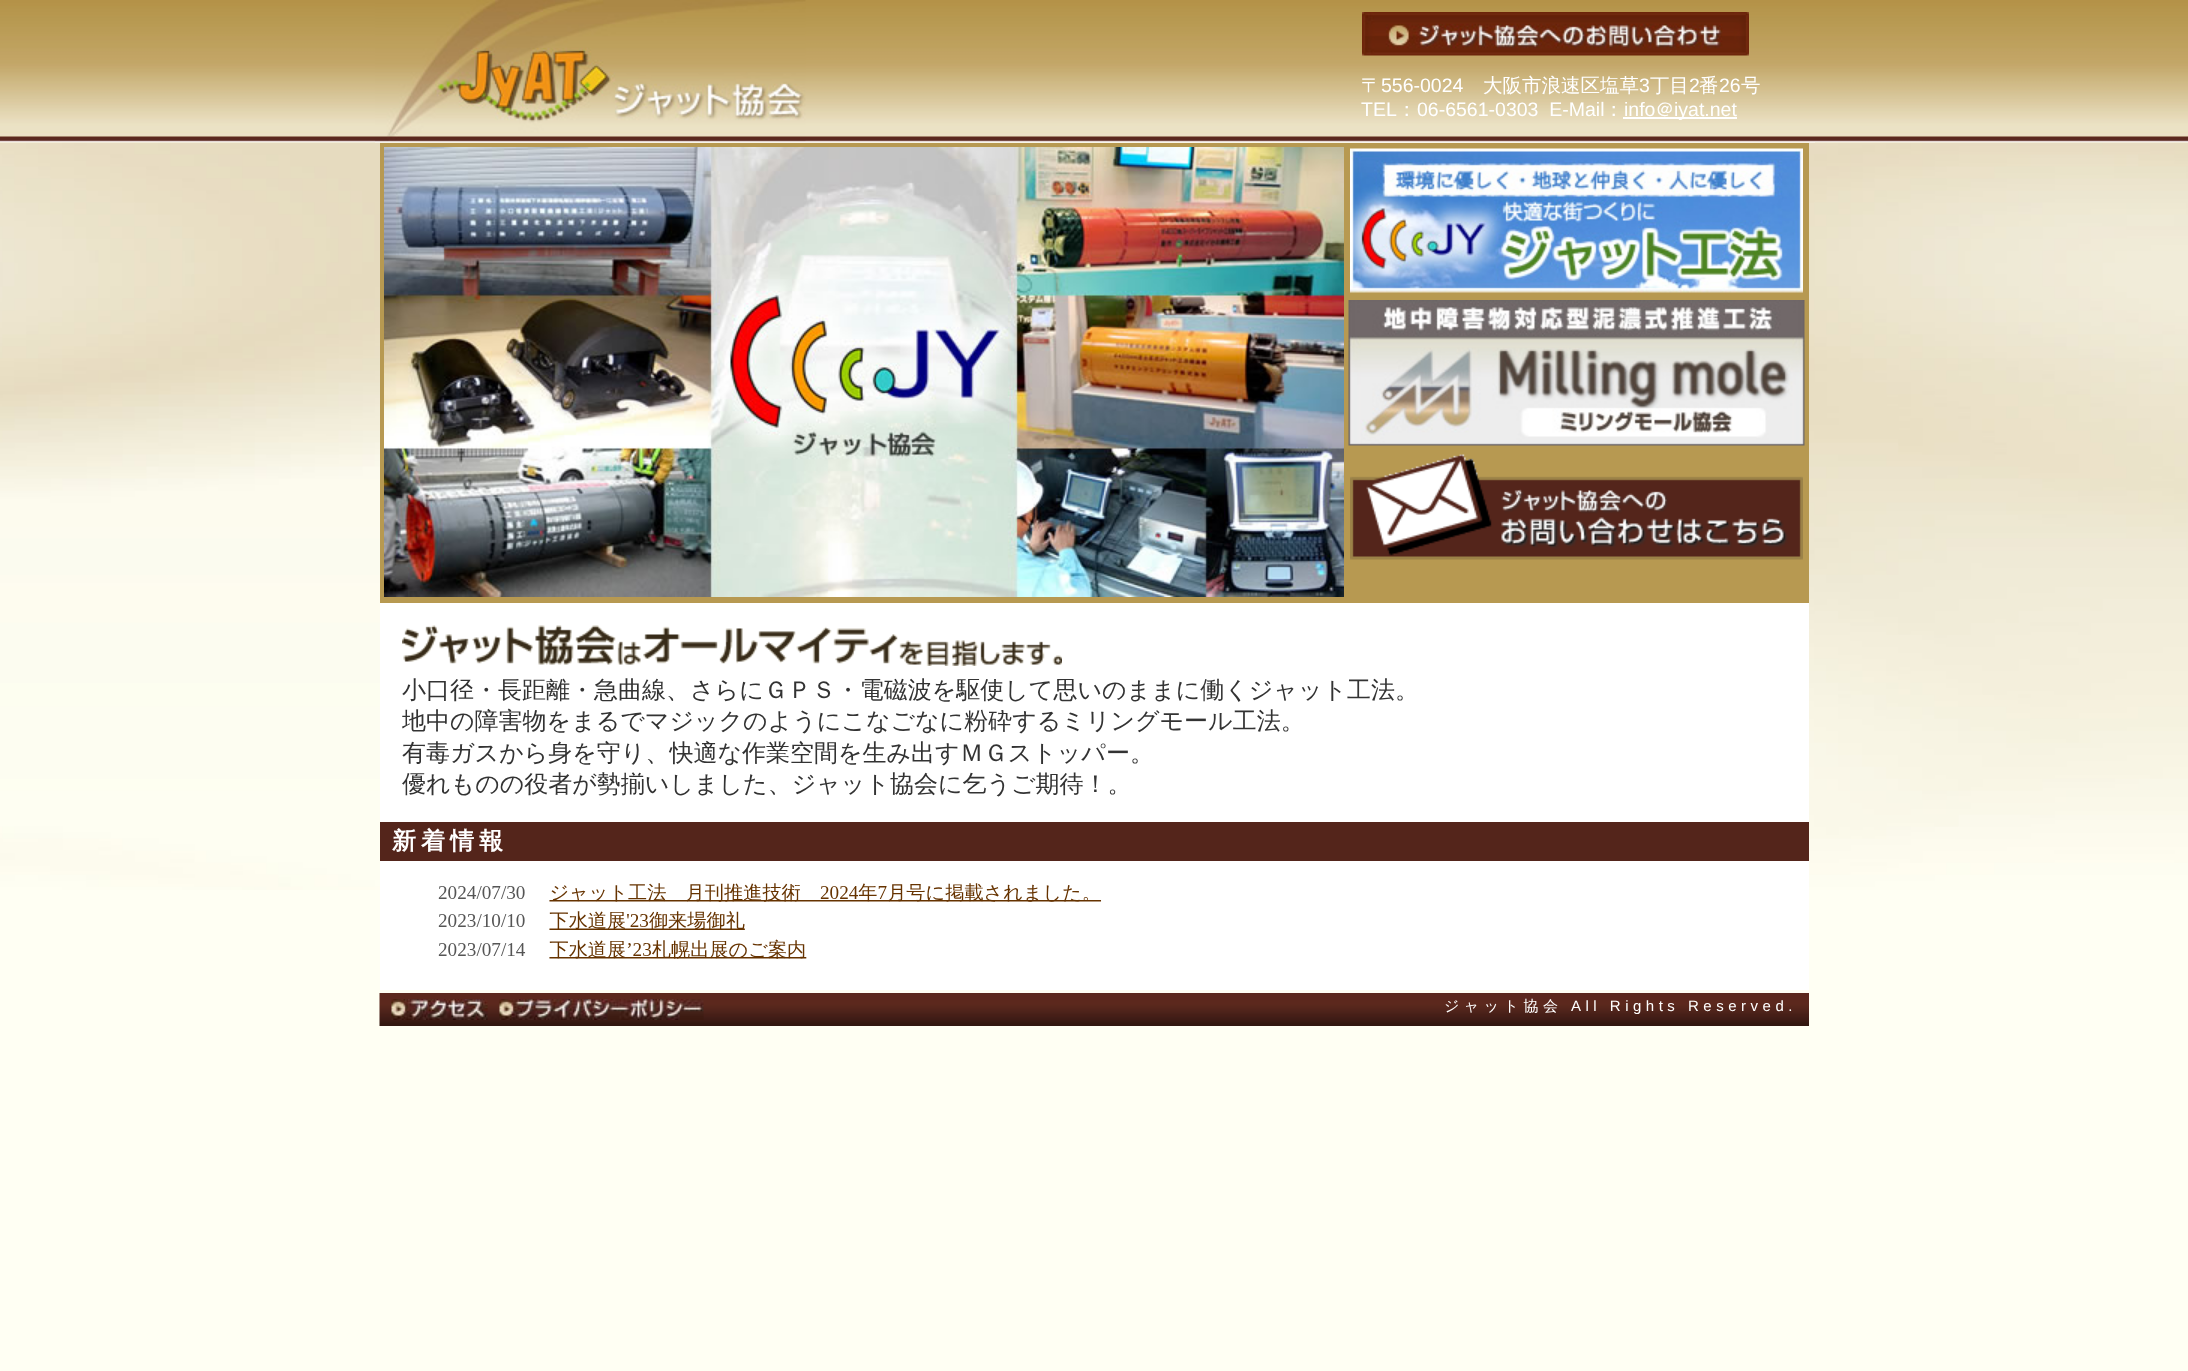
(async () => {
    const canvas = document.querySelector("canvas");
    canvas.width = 2188;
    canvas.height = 1371;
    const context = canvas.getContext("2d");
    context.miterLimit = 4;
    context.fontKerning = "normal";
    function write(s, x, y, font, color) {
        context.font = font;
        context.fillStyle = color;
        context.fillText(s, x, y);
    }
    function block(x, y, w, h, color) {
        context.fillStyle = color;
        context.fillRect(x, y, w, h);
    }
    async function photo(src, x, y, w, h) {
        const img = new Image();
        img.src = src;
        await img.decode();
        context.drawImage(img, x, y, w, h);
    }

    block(0, 0, 2188, 1371, "rgb(255, 255, 243)");
    await photo("media/1.png", 0, 0, 2188, 142);
    await photo("media/4.png", 0, 142, 2188, 748);
    block(375, 142, 1440, 1, "rgba(255, 251, 251, 0.25)");
    await photo("media/2.png", 375, 0, 431, 143);
    block(1362, 142, 453, 1, "rgba(255, 251, 251, 0.25)");
    await photo("media/3.png", 1362, 12, 387, 44);
    write("〒", 1361, 92, "500 19.5px WenQuanYi Zen Hei", "rgb(255, 255, 255)");
    write("556-0024", 1381, 92, "19.5px Liberation Sans", "rgb(255, 255, 255)");
    write("大阪市浪速区塩草", 1483, 92, "500 19.5px WenQuanYi Zen Hei", "rgb(255, 255, 255)");
    write("3", 1639, 92, "19.5px Liberation Sans", "rgb(255, 255, 255)");
    write("丁目", 1650, 92, "500 19.5px WenQuanYi Zen Hei", "rgb(255, 255, 255)");
    write("2", 1689, 92, "19.5px Liberation Sans", "rgb(255, 255, 255)");
    write("番", 1699, 92, "500 19.5px WenQuanYi Zen Hei", "rgb(255, 255, 255)");
    write("26", 1719, 92, "19.5px Liberation Sans", "rgb(255, 255, 255)");
    write("号", 1741, 92, "500 19.5px WenQuanYi Zen Hei", "rgb(255, 255, 255)");
    write("TEL", 1361, 116, "19.5px Liberation Sans", "rgb(255, 255, 255)");
    write("：", 1397, 116, "500 19.5px WenQuanYi Zen Hei", "rgb(255, 255, 255)");
    write("06-6561-0303  E-Mail", 1417, 116, "19.5px Liberation Sans", "rgb(255, 255, 255)");
    write("：", 1604, 116, "500 19.5px WenQuanYi Zen Hei", "rgb(255, 255, 255)");
    write("info", 1624, 116, "19.5px Liberation Sans", "rgb(255, 255, 255)");
    write("＠", 1655, 116, "500 19.5px WenQuanYi Zen Hei", "rgb(255, 255, 255)");
    block(1623, 117, 114, 2, "rgb(255, 255, 255)");
    write("iyat.net", 1674, 116, "19.5px Liberation Sans", "rgb(255, 255, 255)");
    block(380, 143, 1429, 460, "rgb(183, 153, 81)");
    await photo("media/5.png", 384, 147, 960, 450);
    await photo("media/6.png", 1350, 148, 453, 145);
    await photo("media/7.png", 1348, 300, 457, 146);
    await photo("media/8.png", 1350, 454, 453, 106);
    block(380, 603, 1429, 219, "rgb(255, 255, 255)");
    await photo("media/9.png", 402, 625, 660, 41);
    write("小口径・長距離・急曲線、さらにＧＰＳ・電磁波を駆使して思いのままに働くジャット工法。", 402, 698, "500 24px WenQuanYi Zen Hei", "rgb(51, 51, 51)");
    write("地中の障害物をまるでマジックのようにこなごなに粉砕するミリングモール工法。", 402, 729, "500 24px WenQuanYi Zen Hei", "rgb(51, 51, 51)");
    write("有毒ガスから身を守り、快適な作業空間を生み出すＭＧストッパー。", 402, 761, "500 24px WenQuanYi Zen Hei", "rgb(51, 51, 51)");
    write("優れものの役者が勢揃いしました、ジャット協会に乞うご期待！。", 402, 792, "500 24px WenQuanYi Zen Hei", "rgb(51, 51, 51)");
    block(380, 822, 1429, 39, "rgb(84, 37, 27)");
    context.letterSpacing = "5px";
    write("新着情報", 392, 849, "bold 24px WenQuanYi Zen Hei", "rgb(255, 255, 255)");
    block(380, 861, 1429, 129, "rgb(255, 255, 255)");
    await photo("media/10.png", 438, 883, 664, 76);
    await photo("media/11.png", 379, 993, 1430, 33);
    await photo("media/12.png", 391, 999, 97, 21);
    await photo("media/13.png", 499, 999, 205, 21);
    context.letterSpacing = "4.5px";
    write("ジャット協会", 1444, 1011, "500 15px WenQuanYi Zen Hei", "rgb(255, 255, 255)");
    write("All Rights Reserved.", 1571, 1011, "15px Liberation Sans", "rgb(255, 255, 255)");
})();
